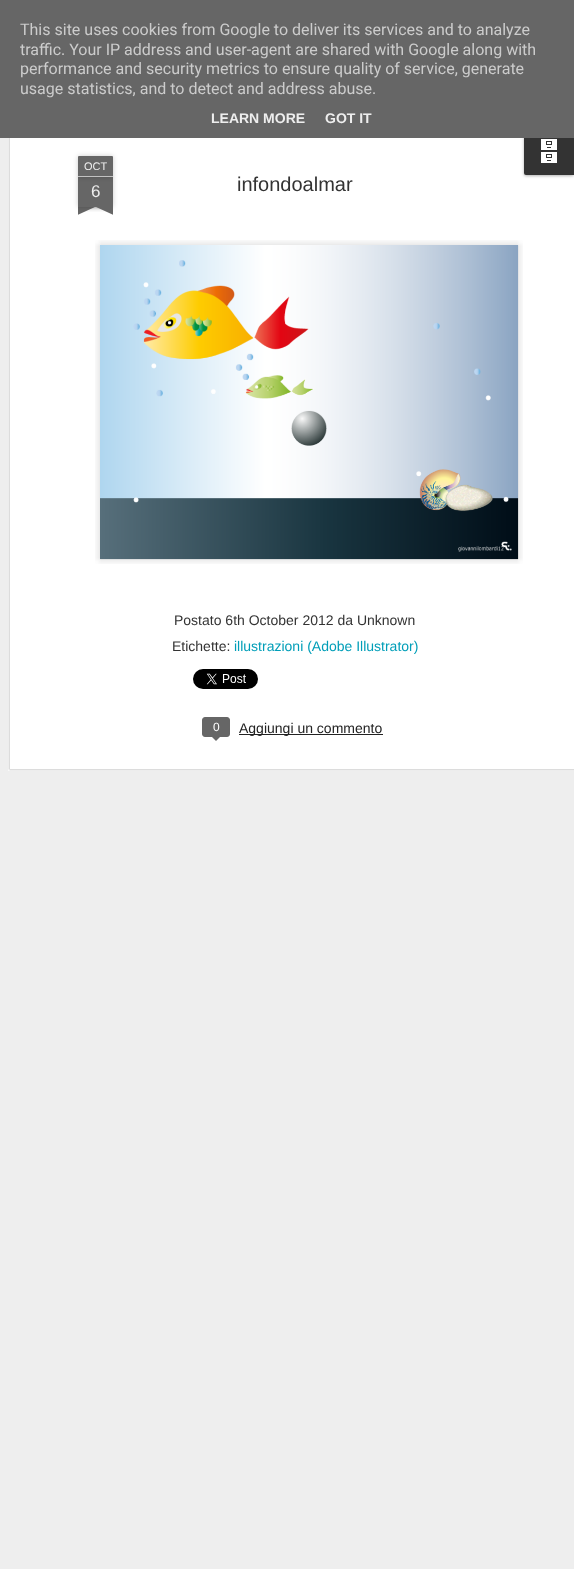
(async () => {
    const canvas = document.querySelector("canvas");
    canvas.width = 574;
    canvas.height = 1569;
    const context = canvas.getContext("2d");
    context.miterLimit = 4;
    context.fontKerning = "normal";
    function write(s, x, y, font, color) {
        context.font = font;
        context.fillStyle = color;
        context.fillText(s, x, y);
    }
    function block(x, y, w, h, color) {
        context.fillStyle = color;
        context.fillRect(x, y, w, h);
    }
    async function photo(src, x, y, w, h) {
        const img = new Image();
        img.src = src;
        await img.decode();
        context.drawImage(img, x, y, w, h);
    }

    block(0, 0, 574, 1569, "rgb(238, 238, 238)");
    block(8, 138, 566, 633, "rgb(255, 255, 255)");
    await photo("media/2.png", 8, 138, 566, 633);
    context.fillStyle = "rgba(0, 0, 0, 0.3)";
    context.filter = "blur(1.5px)";
    context.beginPath();
    context.roundRect(524, 125, 50, 51, 2);
    context.fill();
    context.filter = "none";
    context.fillStyle = "rgb(51, 51, 51)";
    context.beginPath();
    context.roundRect(524, 124, 50, 51, [0, 0, 0, 2]);
    context.fill();
    block(0, 0, 574, 138, "rgb(102, 102, 102)");
    write("This site uses cookies from Google to deliver its services and to analyze", 20, 35, "16px Roboto", "rgb(204, 204, 204)");
    write("traffic. Your IP address and user-agent are shared with Google along with", 20, 55, "16px Roboto", "rgb(204, 204, 204)");
    write("performance and security metrics to ensure quality of service, generate", 20, 74, "16px Roboto", "rgb(204, 204, 204)");
    write("usage statistics, and to detect and address abuse.", 20, 94, "16px Roboto", "rgb(204, 204, 204)");
    write("LEARN MORE", 211, 123, "bold 14px Liberation Sans", "rgb(238, 238, 238)");
    write("GOT IT", 325, 123, "bold 14px Liberation Sans", "rgb(238, 238, 238)");
    await photo("media/1.png", 541, 139, 16, 24);
    context.fillStyle = "rgba(0, 0, 0, 0.2)";
    context.filter = "blur(2.5px)";
    context.beginPath();
    context.rect(78, 177, 35, 30);
    context.fill();
    context.filter = "none";
    block(78, 177, 35, 30, "rgb(102, 102, 102)");
    context.fillStyle = "rgba(0, 0, 0, 0.2)";
    context.filter = "blur(2.5px)";
    context.beginPath();
    context.roundRect(78, 156, 35, 21, 1);
    context.fill();
    context.filter = "none";
    context.fillStyle = "rgb(102, 102, 102)";
    context.beginPath();
    context.roundRect(78, 156, 35, 21, [1, 1, 0, 0]);
    context.fill();
    block(78, 176, 35, 1, "rgb(194, 194, 194)");
    write("OCT", 84, 170, "11px Liberation Sans", "rgb(238, 238, 238)");
    write("6", 91, 197, "17px Liberation Sans", "rgb(238, 238, 238)");
    context.save();
    context.beginPath();
    context.rect(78, 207, 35, 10);
    context.clip();
    context.fillStyle = "rgba(0, 0, 0, 0.2)";
    context.filter = "blur(2.5px)";
    context.beginPath();
    context.rect(69, 197, 50, 10);
    context.fill();
    context.filter = "none";
    context.restore();
    context.save();
    context.beginPath();
    context.rect(78, 207, 35, 10);
    context.clip();
    context.fillStyle = "rgb(102, 102, 102)";
    context.beginPath();
    context.moveTo(69, 208);
    context.lineTo(115, 187);
    context.lineTo(119, 196);
    context.lineTo(73, 217);
    context.closePath();
    context.fill();
    context.restore();
    context.save();
    context.beginPath();
    context.rect(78, 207, 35, 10);
    context.clip();
    context.fillStyle = "rgba(0, 0, 0, 0.2)";
    context.filter = "blur(2.5px)";
    context.beginPath();
    context.rect(72, 197, 50, 10);
    context.fill();
    context.filter = "none";
    context.restore();
    context.save();
    context.beginPath();
    context.rect(78, 207, 35, 10);
    context.clip();
    context.fillStyle = "rgb(102, 102, 102)";
    context.beginPath();
    context.moveTo(76, 187);
    context.lineTo(122, 208);
    context.lineTo(118, 217);
    context.lineTo(72, 196);
    context.closePath();
    context.fill();
    context.restore();
    write("infondoalmar", 237, 191, "20px Liberation Sans", "rgb(51, 51, 51)");
    await photo("media/3.png", 95, 240, 428, 324);
    await photo("media/4.png", 100, 245, 419, 315);
    write("Postato 6th October 2012 da Unknown", 174, 625, "14px Liberation Sans", "rgb(51, 51, 51)");
    write("Etichette:", 172, 651, "14px Liberation Sans", "rgb(51, 51, 51)");
    write("illustrazioni (Adobe Illustrator)", 234, 651, "14px Liberation Sans", "rgb(0, 158, 184)");
    await photo("media/5.png", 193, 669, 65, 20);
    context.fillStyle = "rgb(102, 102, 102)";
    context.beginPath();
    context.roundRect(202.5, 717.5, 27, 19, 2.5);
    context.fill();
    context.strokeStyle = "rgb(102, 102, 102)";
    context.stroke();
    write("0", 213, 731, "12px Liberation Sans", "rgb(255, 255, 255)");
    context.fillStyle = "rgb(102, 102, 102)";
    context.beginPath();
    context.moveTo(211, 736);
    context.lineTo(221, 736);
    context.lineTo(216, 741);
    context.closePath();
    context.fill();
    block(239, 734, 144, 1, "rgb(34, 34, 34)");
    write("Aggiungi un commento", 239, 733, "14px Liberation Sans", "rgb(34, 34, 34)");
})();
